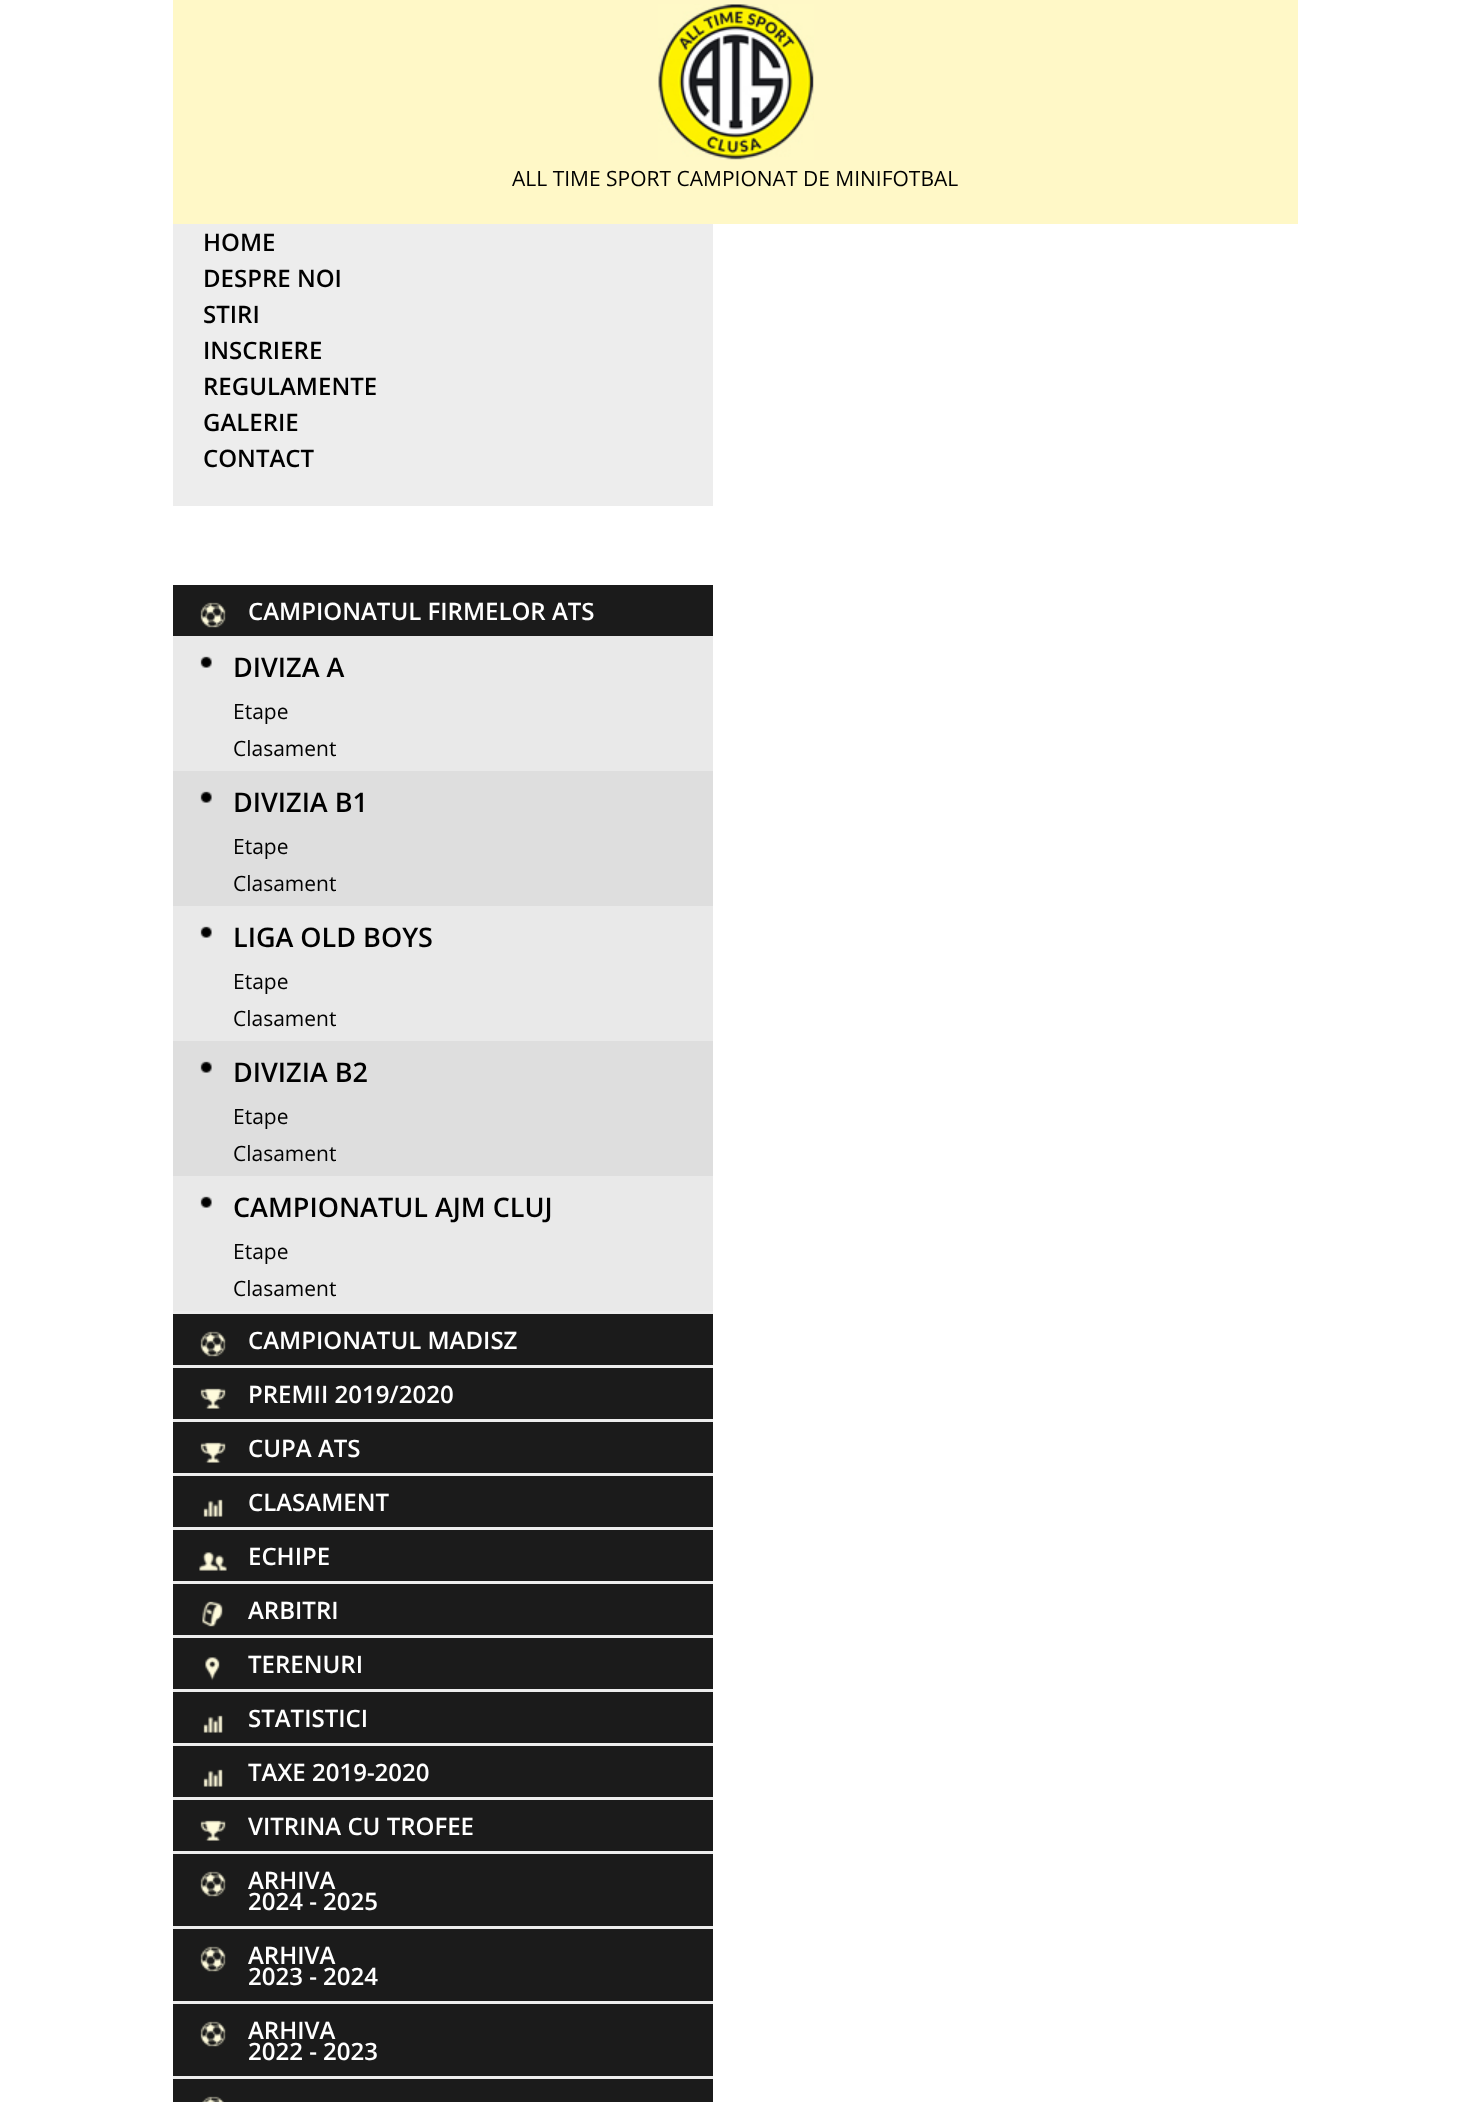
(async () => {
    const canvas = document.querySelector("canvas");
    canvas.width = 1469;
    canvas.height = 2102;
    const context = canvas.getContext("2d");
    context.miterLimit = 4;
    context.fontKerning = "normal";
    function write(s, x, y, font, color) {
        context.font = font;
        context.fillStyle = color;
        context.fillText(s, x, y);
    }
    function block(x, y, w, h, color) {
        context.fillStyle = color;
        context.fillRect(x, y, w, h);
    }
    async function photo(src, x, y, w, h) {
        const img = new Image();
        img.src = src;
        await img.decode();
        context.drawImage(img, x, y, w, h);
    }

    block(0, 0, 1469, 2102, "rgb(255, 255, 255)");
    block(173, 0, 1125, 224, "rgb(255, 248, 199)");
    await photo("media/1.png", 658, 4, 156, 156);
    write("ALL TIME SPORT CAMPIONAT DE MINIFOTBAL", 512, 186, "21px Open Sans", "rgb(0, 0, 0)");
    block(173, 224, 540, 282, "rgb(237, 237, 237)");
    write("HOME", 203, 251, "600 24px Open Sans", "rgb(0, 0, 0)");
    write("DESPRE NOI", 203, 287, "600 24px Open Sans", "rgb(0, 0, 0)");
    write("STIRI", 203, 323, "600 24px Open Sans", "rgb(0, 0, 0)");
    write("INSCRIERE", 203, 359, "600 24px Open Sans", "rgb(0, 0, 0)");
    write("REGULAMENTE", 203, 395, "600 24px Open Sans", "rgb(0, 0, 0)");
    write("GALERIE", 203, 431, "600 24px Open Sans", "rgb(0, 0, 0)");
    write("CONTACT", 203, 467, "600 24px Open Sans", "rgb(0, 0, 0)");
    block(173, 1311, 540, 768, "rgb(237, 237, 237)");
    block(173, 585, 540, 51, "rgb(27, 27, 27)");
    await photo("media/2.png", 200, 602, 26, 26);
    write("CAMPIONATUL FIRMELOR ATS", 248, 620, "600 24px Open Sans", "rgb(255, 255, 255)");
    block(173, 636, 540, 135, "rgb(233, 233, 233)");
    await photo("media/3.png", 200, 656, 12, 12);
    write("DIVIZA A", 233, 677, "600 27px Open Sans", "rgb(0, 0, 0)");
    write("Etape", 233, 719, "21px Open Sans", "rgb(0, 0, 0)");
    write("Clasament", 233, 756, "21px Open Sans", "rgb(0, 0, 0)");
    block(173, 771, 540, 135, "rgb(222, 222, 222)");
    await photo("media/4.png", 200, 791, 12, 12);
    write("DIVIZIA B1", 233, 812, "600 27px Open Sans", "rgb(0, 0, 0)");
    write("Etape", 233, 854, "21px Open Sans", "rgb(0, 0, 0)");
    write("Clasament", 233, 891, "21px Open Sans", "rgb(0, 0, 0)");
    block(173, 906, 540, 135, "rgb(233, 233, 233)");
    await photo("media/3.png", 200, 926, 12, 12);
    write("LIGA OLD BOYS", 233, 947, "600 27px Open Sans", "rgb(0, 0, 0)");
    write("Etape", 233, 989, "21px Open Sans", "rgb(0, 0, 0)");
    write("Clasament", 233, 1026, "21px Open Sans", "rgb(0, 0, 0)");
    block(173, 1041, 540, 135, "rgb(222, 222, 222)");
    await photo("media/4.png", 200, 1061, 12, 12);
    write("DIVIZIA B2", 233, 1082, "600 27px Open Sans", "rgb(0, 0, 0)");
    write("Etape", 233, 1124, "21px Open Sans", "rgb(0, 0, 0)");
    write("Clasament", 233, 1161, "21px Open Sans", "rgb(0, 0, 0)");
    block(173, 1176, 540, 135, "rgb(233, 233, 233)");
    await photo("media/3.png", 200, 1196, 12, 12);
    write("CAMPIONATUL AJM CLUJ", 233, 1217, "600 27px Open Sans", "rgb(0, 0, 0)");
    write("Etape", 233, 1259, "21px Open Sans", "rgb(0, 0, 0)");
    write("Clasament", 233, 1296, "21px Open Sans", "rgb(0, 0, 0)");
    block(173, 1314, 540, 51, "rgb(27, 27, 27)");
    await photo("media/2.png", 200, 1331, 26, 26);
    write("CAMPIONATUL MADISZ", 248, 1349, "600 24px Open Sans", "rgb(255, 255, 255)");
    block(173, 1368, 540, 51, "rgb(27, 27, 27)");
    await photo("media/5.png", 200, 1388, 26, 21);
    write("PREMII 2019/2020", 248, 1403, "600 24px Open Sans", "rgb(255, 255, 255)");
    block(173, 1422, 540, 51, "rgb(27, 27, 27)");
    await photo("media/5.png", 200, 1442, 26, 21);
    write("CUPA ATS", 248, 1457, "600 24px Open Sans", "rgb(255, 255, 255)");
    block(173, 1476, 540, 51, "rgb(27, 27, 27)");
    await photo("media/6.png", 203, 1499, 20, 18);
    write("CLASAMENT", 248, 1511, "600 24px Open Sans", "rgb(255, 255, 255)");
    block(173, 1530, 540, 51, "rgb(27, 27, 27)");
    await photo("media/7.png", 199, 1552, 28, 19);
    write("ECHIPE", 248, 1565, "600 24px Open Sans", "rgb(255, 255, 255)");
    block(173, 1584, 540, 51, "rgb(27, 27, 27)");
    await photo("media/8.png", 202, 1601, 21, 26);
    write("ARBITRI", 248, 1619, "600 24px Open Sans", "rgb(255, 255, 255)");
    block(173, 1638, 540, 51, "rgb(27, 27, 27)");
    await photo("media/9.png", 205, 1657, 15, 24);
    write("TERENURI", 248, 1673, "600 24px Open Sans", "rgb(255, 255, 255)");
    block(173, 1692, 540, 51, "rgb(27, 27, 27)");
    await photo("media/6.png", 203, 1715, 20, 18);
    write("STATISTICI", 248, 1727, "600 24px Open Sans", "rgb(255, 255, 255)");
    block(173, 1746, 540, 51, "rgb(27, 27, 27)");
    await photo("media/6.png", 203, 1769, 20, 18);
    write("TAXE 2019-2020", 248, 1781, "600 24px Open Sans", "rgb(255, 255, 255)");
    block(173, 1800, 540, 51, "rgb(27, 27, 27)");
    await photo("media/5.png", 200, 1820, 26, 21);
    write("VITRINA CU TROFEE", 248, 1835, "600 24px Open Sans", "rgb(255, 255, 255)");
    block(173, 1854, 540, 72, "rgb(27, 27, 27)");
    await photo("media/2.png", 200, 1871, 26, 26);
    write("ARHIVA", 248, 1889, "600 24px Open Sans", "rgb(255, 255, 255)");
    write("2024 - 2025", 248, 1910, "600 24px Open Sans", "rgb(255, 255, 255)");
    block(173, 1929, 540, 72, "rgb(27, 27, 27)");
    await photo("media/2.png", 200, 1946, 26, 26);
    write("ARHIVA", 248, 1964, "600 24px Open Sans", "rgb(255, 255, 255)");
    write("2023 - 2024", 248, 1985, "600 24px Open Sans", "rgb(255, 255, 255)");
    block(173, 2004, 540, 72, "rgb(27, 27, 27)");
    await photo("media/2.png", 200, 2021, 26, 26);
    write("ARHIVA", 248, 2039, "600 24px Open Sans", "rgb(255, 255, 255)");
    write("2022 - 2023", 248, 2060, "600 24px Open Sans", "rgb(255, 255, 255)");
    block(173, 2079, 540, 23, "rgb(27, 27, 27)");
    await photo("media/10.png", 202, 2096, 22, 6);
})();
